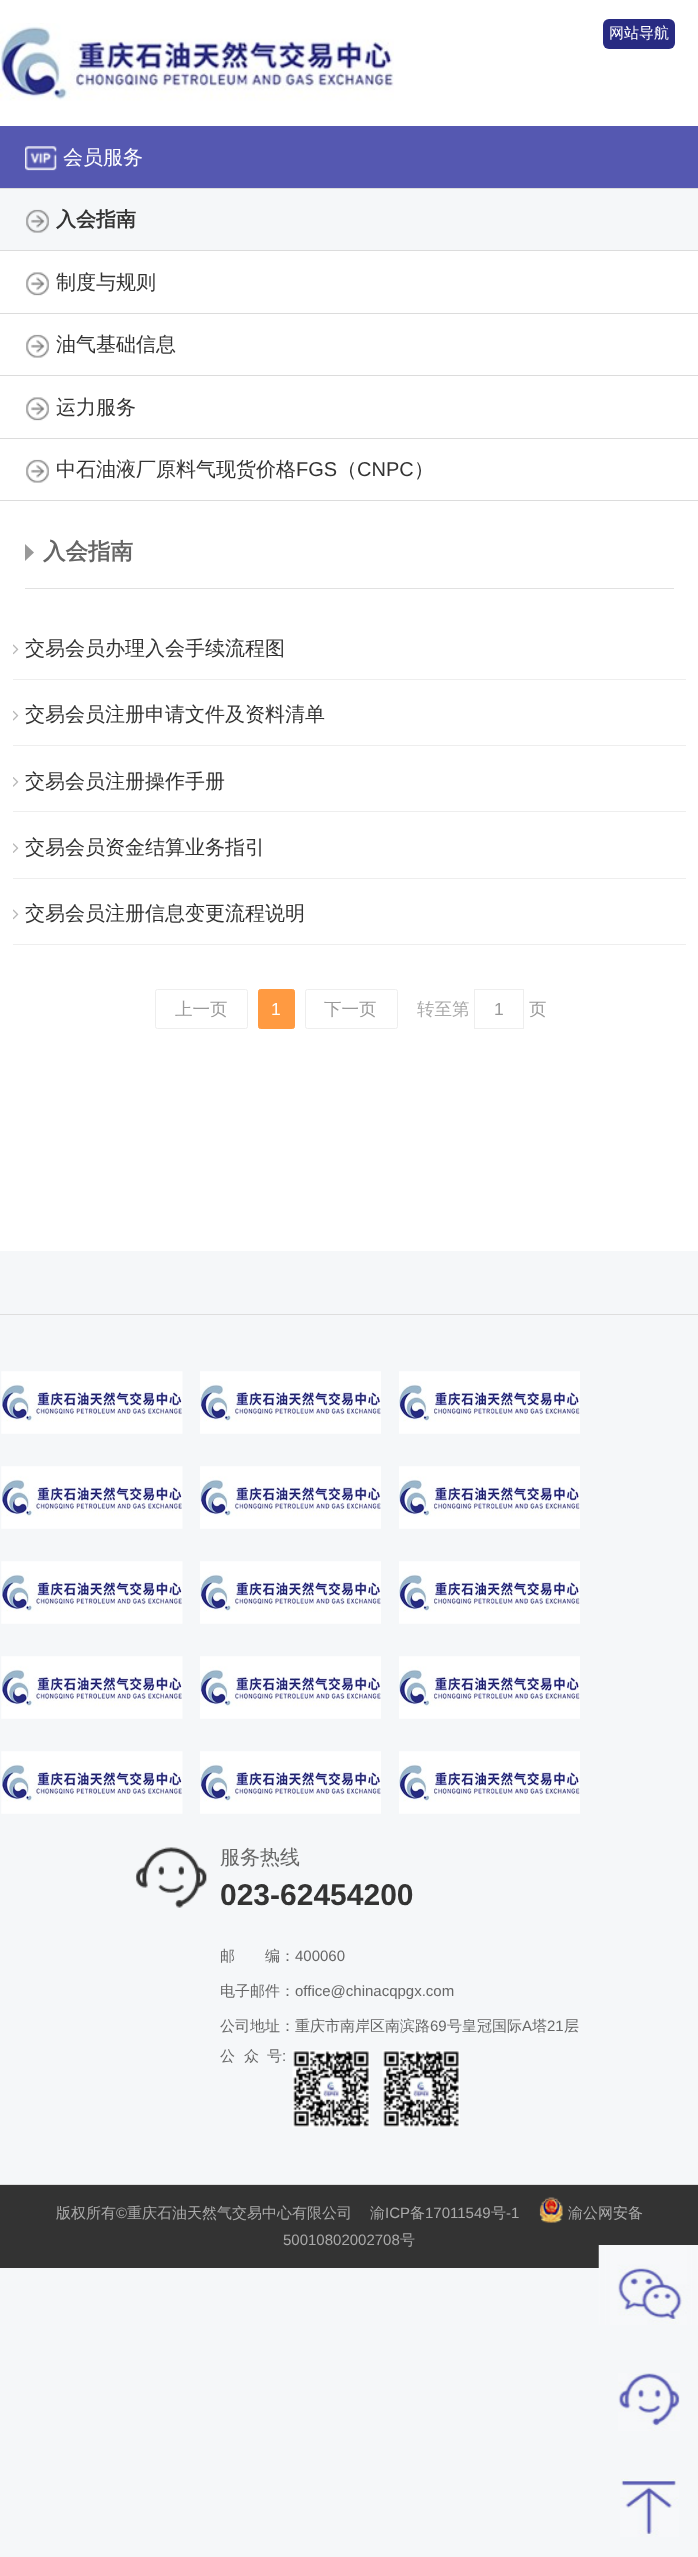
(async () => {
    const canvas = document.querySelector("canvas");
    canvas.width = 698;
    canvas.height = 2557;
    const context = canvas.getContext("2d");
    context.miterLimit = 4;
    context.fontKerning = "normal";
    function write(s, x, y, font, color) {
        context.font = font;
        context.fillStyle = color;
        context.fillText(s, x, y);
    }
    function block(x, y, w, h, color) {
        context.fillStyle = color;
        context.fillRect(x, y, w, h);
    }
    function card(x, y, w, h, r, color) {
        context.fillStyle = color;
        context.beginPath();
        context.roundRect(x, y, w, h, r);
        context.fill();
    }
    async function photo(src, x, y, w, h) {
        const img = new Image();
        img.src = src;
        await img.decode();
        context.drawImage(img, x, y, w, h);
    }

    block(0, 0, 698, 2557, "rgb(245, 247, 249)");
    block(0, 0, 698, 126, "rgb(255, 255, 255)");
    await photo("media/1.png", 0, 23, 394, 78);
    card(603, 19, 72, 30, 6, "rgb(40, 43, 130)");
    write("网站导航", 609, 38, "500 15px WenQuanYi Zen Hei", "rgb(255, 255, 255)");
    block(0, 251, 698, 249, "rgb(255, 255, 255)");
    block(0, 188, 698, 1, "rgb(220, 220, 220)");
    block(0, 126, 698, 62, "rgb(85, 88, 177)");
    await photo("media/2.png", 25, 146, 32, 25);
    write("会员服务", 63, 164, "500 20px WenQuanYi Zen Hei", "rgb(255, 255, 255)");
    block(0, 250, 698, 1, "rgb(220, 220, 220)");
    await photo("media/3.png", 26, 209, 23, 24);
    write("入会指南", 56, 226, "bold 20px WenQuanYi Zen Hei", "rgb(51, 51, 51)");
    block(0, 313, 698, 1, "rgb(220, 220, 220)");
    await photo("media/4.png", 26, 272, 23, 24);
    write("制度与规则", 56, 289, "500 20px WenQuanYi Zen Hei", "rgb(51, 51, 51)");
    block(0, 375, 698, 1, "rgb(220, 220, 220)");
    await photo("media/5.png", 26, 334, 23, 24);
    write("油气基础信息", 56, 351, "500 20px WenQuanYi Zen Hei", "rgb(51, 51, 51)");
    block(0, 438, 698, 1, "rgb(220, 220, 220)");
    await photo("media/4.png", 26, 397, 23, 24);
    write("运力服务", 56, 414, "500 20px WenQuanYi Zen Hei", "rgb(51, 51, 51)");
    block(0, 500, 698, 1, "rgb(220, 220, 220)");
    await photo("media/5.png", 26, 459, 23, 24);
    write("中石油液厂原料气现货价格", 56, 476, "500 20px WenQuanYi Zen Hei", "rgb(51, 51, 51)");
    write("FGS", 296, 476, "20px Liberation Sans", "rgb(51, 51, 51)");
    write("（", 337, 476, "500 20px WenQuanYi Zen Hei", "rgb(51, 51, 51)");
    write("CNPC", 357, 476, "20px Liberation Sans", "rgb(51, 51, 51)");
    write("）", 414, 476, "500 20px WenQuanYi Zen Hei", "rgb(51, 51, 51)");
    block(0, 501, 698, 750, "rgb(255, 255, 255)");
    block(25, 588, 649, 1, "rgb(225, 225, 225)");
    context.fillStyle = "rgb(153, 153, 153)";
    context.beginPath();
    context.moveTo(25, 561);
    context.lineTo(25, 544);
    context.lineTo(34, 552.5);
    context.closePath();
    context.fill();
    write("入会指南", 43, 559, "bold 22.5px WenQuanYi Zen Hei", "rgb(102, 102, 102)");
    block(13, 679, 673, 1, "rgb(238, 238, 238)");
    await photo("media/6.png", 13, 644, 6, 11);
    write("交易会员办理入会手续流程图", 25, 655, "500 20px WenQuanYi Zen Hei", "rgb(51, 51, 51)");
    block(13, 745, 673, 1, "rgb(238, 238, 238)");
    await photo("media/7.png", 13, 710, 6, 11);
    write("交易会员注册申请文件及资料清单", 25, 721, "500 20px WenQuanYi Zen Hei", "rgb(51, 51, 51)");
    block(13, 811, 673, 1, "rgb(238, 238, 238)");
    await photo("media/8.png", 13, 777, 6, 10);
    write("交易会员注册操作手册", 25, 788, "500 20px WenQuanYi Zen Hei", "rgb(51, 51, 51)");
    block(13, 878, 673, 1, "rgb(238, 238, 238)");
    await photo("media/9.png", 13, 843, 6, 10);
    write("交易会员资金结算业务指引", 25, 854, "500 20px WenQuanYi Zen Hei", "rgb(51, 51, 51)");
    block(13, 944, 673, 1, "rgb(238, 238, 238)");
    await photo("media/6.png", 13, 909, 6, 11);
    write("交易会员注册信息变更流程说明", 25, 920, "500 20px WenQuanYi Zen Hei", "rgb(51, 51, 51)");
    context.beginPath();
    context.roundRect(155.5, 989.5, 92, 39, 2);
    context.strokeStyle = "rgb(238, 238, 238)";
    context.stroke();
    write("上一页", 175, 1015, "500 17.5px WenQuanYi Zen Hei", "rgb(153, 153, 153)");
    context.fillStyle = "rgb(255, 154, 65)";
    context.beginPath();
    context.roundRect(258.5, 989.5, 36, 39, 2);
    context.fill();
    context.strokeStyle = "rgb(255, 154, 65)";
    context.stroke();
    write("1", 271, 1015, "17.5px Liberation Sans", "rgb(255, 255, 255)");
    context.beginPath();
    context.roundRect(305.5, 989.5, 92, 39, 2);
    context.strokeStyle = "rgb(238, 238, 238)";
    context.stroke();
    write("下一页", 324, 1015, "500 17.5px WenQuanYi Zen Hei", "rgb(153, 153, 153)");
    write("转至第", 417, 1015, "500 17.5px WenQuanYi Zen Hei", "rgb(170, 170, 170)");
    context.strokeRect(474.5, 989.5, 49, 39);
    write("1", 494, 1015, "17.5px Liberation Sans", "rgb(153, 153, 153)");
    write("页", 529, 1015, "500 17.5px WenQuanYi Zen Hei", "rgb(153, 153, 153)");
    block(0, 1314, 698, 1, "rgb(222, 222, 222)");
    block(0, 2184, 698, 1, "rgb(222, 222, 222)");
    await photo("media/10.png", 1, 1371, 182, 63);
    await photo("media/11.png", 200, 1371, 181, 63);
    await photo("media/12.png", 399, 1371, 181, 63);
    await photo("media/10.png", 1, 1466, 182, 63);
    await photo("media/11.png", 200, 1466, 181, 63);
    await photo("media/12.png", 399, 1466, 181, 63);
    await photo("media/13.png", 1, 1561, 182, 63);
    await photo("media/14.png", 200, 1561, 181, 63);
    await photo("media/15.png", 399, 1561, 181, 63);
    await photo("media/10.png", 1, 1656, 182, 63);
    await photo("media/11.png", 200, 1656, 181, 63);
    await photo("media/12.png", 399, 1656, 181, 63);
    await photo("media/10.png", 1, 1751, 182, 63);
    await photo("media/11.png", 200, 1751, 181, 63);
    await photo("media/12.png", 399, 1751, 181, 63);
    await photo("media/16.png", 135, 1847, 72, 61);
    write("服务热线", 220, 1864, "500 20px WenQuanYi Zen Hei", "rgb(102, 102, 102)");
    write("023-62454200", 220, 1905, "bold 30px Liberation Sans", "rgb(51, 51, 51)");
    write("邮", 220, 1961, "500 15px WenQuanYi Zen Hei", "rgb(102, 102, 102)");
    write("编：", 265, 1961, "500 15px WenQuanYi Zen Hei", "rgb(102, 102, 102)");
    write("400060", 295, 1961, "15px Liberation Sans", "rgb(102, 102, 102)");
    write("电子邮件：", 220, 1996, "500 15px WenQuanYi Zen Hei", "rgb(102, 102, 102)");
    write("office@chinacqpgx.com", 295, 1996, "15px Liberation Sans", "rgb(102, 102, 102)");
    write("公司地址：重庆市南岸区南滨路", 220, 2031, "500 15px WenQuanYi Zen Hei", "rgb(102, 102, 102)");
    write("69", 430, 2031, "15px Liberation Sans", "rgb(102, 102, 102)");
    write("号皇冠国际", 447, 2031, "500 15px WenQuanYi Zen Hei", "rgb(102, 102, 102)");
    write("A", 522, 2031, "15px Liberation Sans", "rgb(102, 102, 102)");
    write("塔", 532, 2031, "500 15px WenQuanYi Zen Hei", "rgb(102, 102, 102)");
    write("21", 547, 2031, "15px Liberation Sans", "rgb(102, 102, 102)");
    write("层", 564, 2031, "500 15px WenQuanYi Zen Hei", "rgb(102, 102, 102)");
    write("公", 220, 2061, "500 15px WenQuanYi Zen Hei", "rgb(102, 102, 102)");
    write("众", 244, 2061, "500 15px WenQuanYi Zen Hei", "rgb(102, 102, 102)");
    write("号", 267, 2061, "500 15px WenQuanYi Zen Hei", "rgb(102, 102, 102)");
    write(":", 282, 2061, "15px Liberation Sans", "rgb(102, 102, 102)");
    await photo("media/17.png", 292, 2050, 78, 78);
    await photo("media/18.png", 382, 2050, 78, 78);
    block(0, 2185, 698, 83, "rgb(51, 51, 51)");
    write("版权所有", 56, 2218, "500 15px WenQuanYi Zen Hei", "rgb(170, 170, 170)");
    write("©", 116, 2218, "15px Liberation Sans", "rgb(170, 170, 170)");
    write("重庆石油天然气交易中心有限公司", 127, 2218, "500 15px WenQuanYi Zen Hei", "rgb(170, 170, 170)");
    write("渝", 370, 2218, "500 15px WenQuanYi Zen Hei", "rgb(170, 170, 170)");
    write("ICP", 385, 2218, "15px Liberation Sans", "rgb(170, 170, 170)");
    write("备", 410, 2218, "500 15px WenQuanYi Zen Hei", "rgb(170, 170, 170)");
    write("17011549", 425, 2218, "15px Liberation Sans", "rgb(170, 170, 170)");
    write("号", 491, 2218, "500 15px WenQuanYi Zen Hei", "rgb(170, 170, 170)");
    write("-1", 506, 2218, "15px Liberation Sans", "rgb(170, 170, 170)");
    await photo("media/19.png", 539, 2197, 24, 26);
    write("渝公网安备", 568, 2218, "500 15px WenQuanYi Zen Hei", "rgb(170, 170, 170)");
    write("50010802002708", 283, 2245, "15px Liberation Sans", "rgb(170, 170, 170)");
    write("号", 400, 2245, "500 15px WenQuanYi Zen Hei", "rgb(170, 170, 170)");
    await photo("media/20.png", 598, 2245, 100, 80);
    await photo("media/21.png", 618, 2373, 62, 58);
    await photo("media/22.png", 620, 2478, 59, 59);
})();
